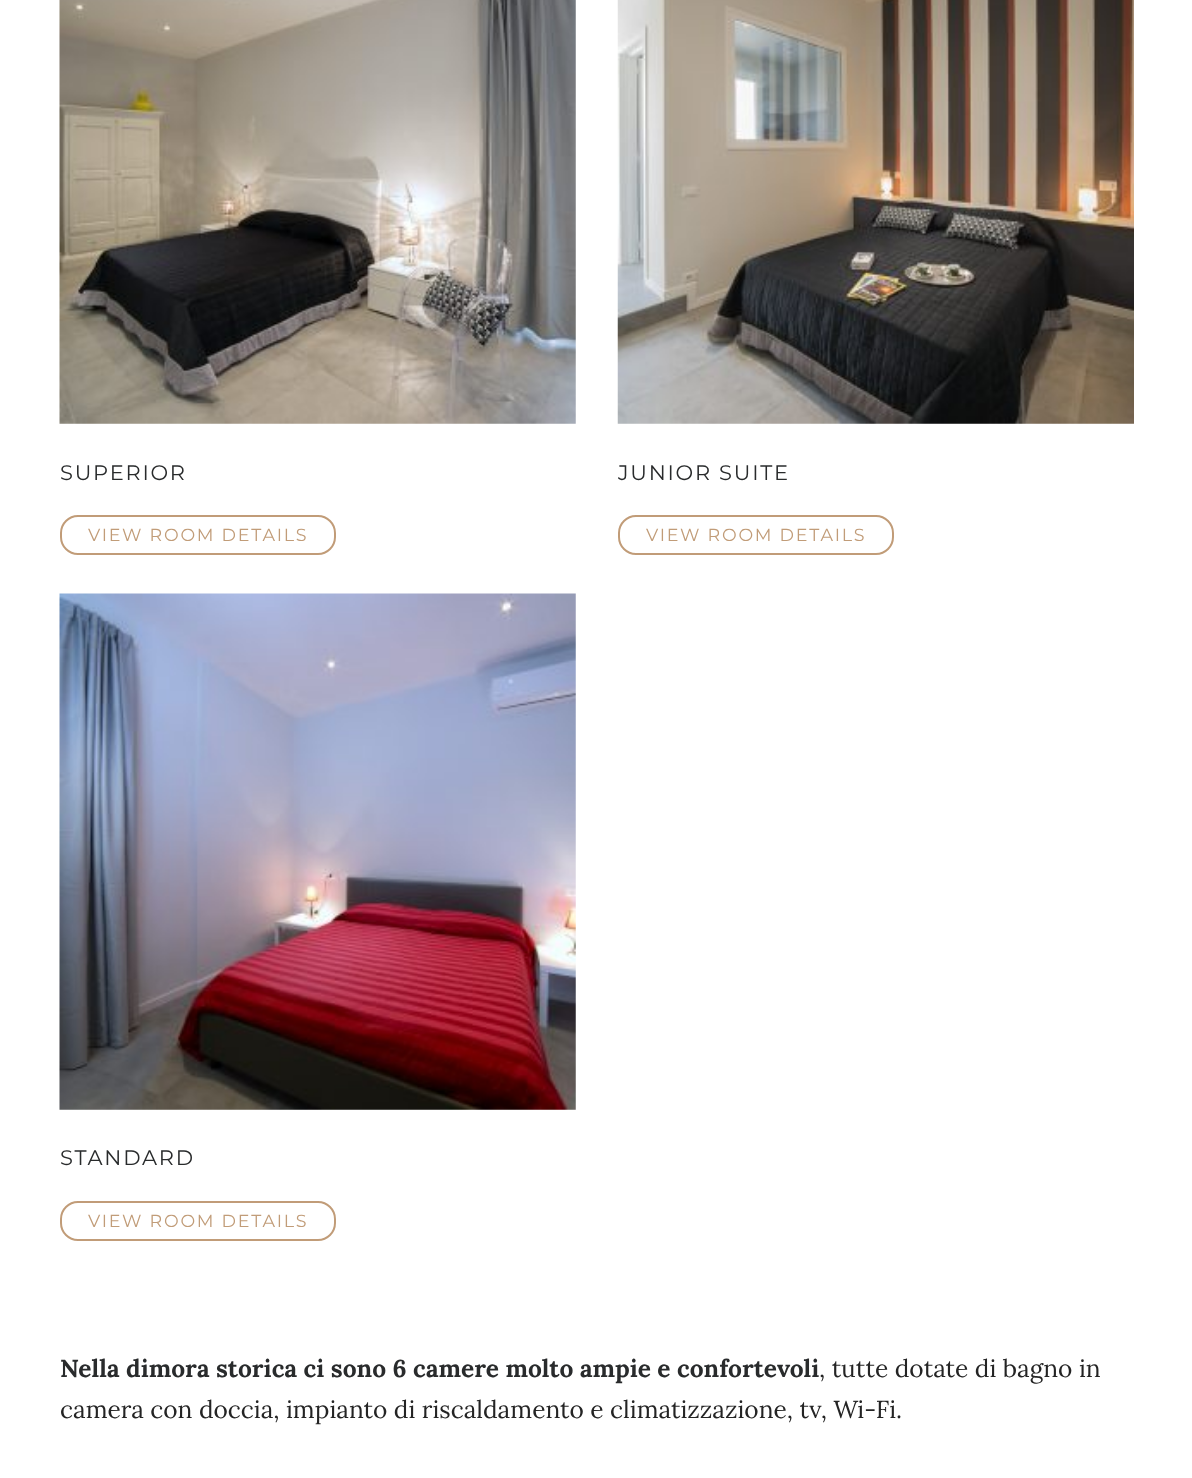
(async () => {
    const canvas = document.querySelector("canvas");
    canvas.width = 1192;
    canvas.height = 1478;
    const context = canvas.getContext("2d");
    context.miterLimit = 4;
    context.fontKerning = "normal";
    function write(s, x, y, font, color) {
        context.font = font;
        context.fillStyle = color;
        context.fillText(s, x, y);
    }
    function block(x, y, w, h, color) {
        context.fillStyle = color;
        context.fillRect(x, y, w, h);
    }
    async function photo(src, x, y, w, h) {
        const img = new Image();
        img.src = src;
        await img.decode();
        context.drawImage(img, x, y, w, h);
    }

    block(0, 0, 1192, 1478, "rgb(255, 255, 255)");
    await photo("media/1.png", 59, 0, 517, 424);
    context.letterSpacing = "1.75px";
    write("SUPERIOR", 60, 480, "100 21px Montserrat", "rgb(41, 43, 44)");
    context.beginPath();
    context.roundRect(61, 516, 274, 38, 17);
    context.strokeStyle = "rgb(193, 156, 120)";
    context.lineWidth = 2;
    context.stroke();
    write("VIEW ROOM DETAILS", 88, 541, "100 17.5px Montserrat", "rgb(193, 156, 120)");
    await photo("media/2.png", 617, 0, 517, 424);
    write("JUNIOR SUITE", 618, 480, "100 21px Montserrat", "rgb(41, 43, 44)");
    context.beginPath();
    context.roundRect(619, 516, 274, 38, 17);
    context.stroke();
    write("VIEW ROOM DETAILS", 646, 541, "100 17.5px Montserrat", "rgb(193, 156, 120)");
    await photo("media/3.png", 59, 593, 517, 517);
    write("STANDARD", 60, 1165, "100 21px Montserrat", "rgb(41, 43, 44)");
    context.beginPath();
    context.roundRect(61, 1202, 274, 38, 17);
    context.stroke();
    write("VIEW ROOM DETAILS", 88, 1227, "100 17.5px Montserrat", "rgb(193, 156, 120)");
    context.letterSpacing = "0px";
    write("Nella dimora storica ci sono 6 camere molto ampie e confortevoli", 60, 1377, "bold 24.5px Lora", "rgb(41, 43, 44)");
    write(", tutte dotate di bagno in", 819, 1377, "24.5px Lora", "rgb(36, 36, 36)");
    write("camera con doccia, impianto di riscaldamento e climatizzazione, tv, Wi-Fi.", 60, 1418, "24.5px Lora", "rgb(36, 36, 36)");
})();
